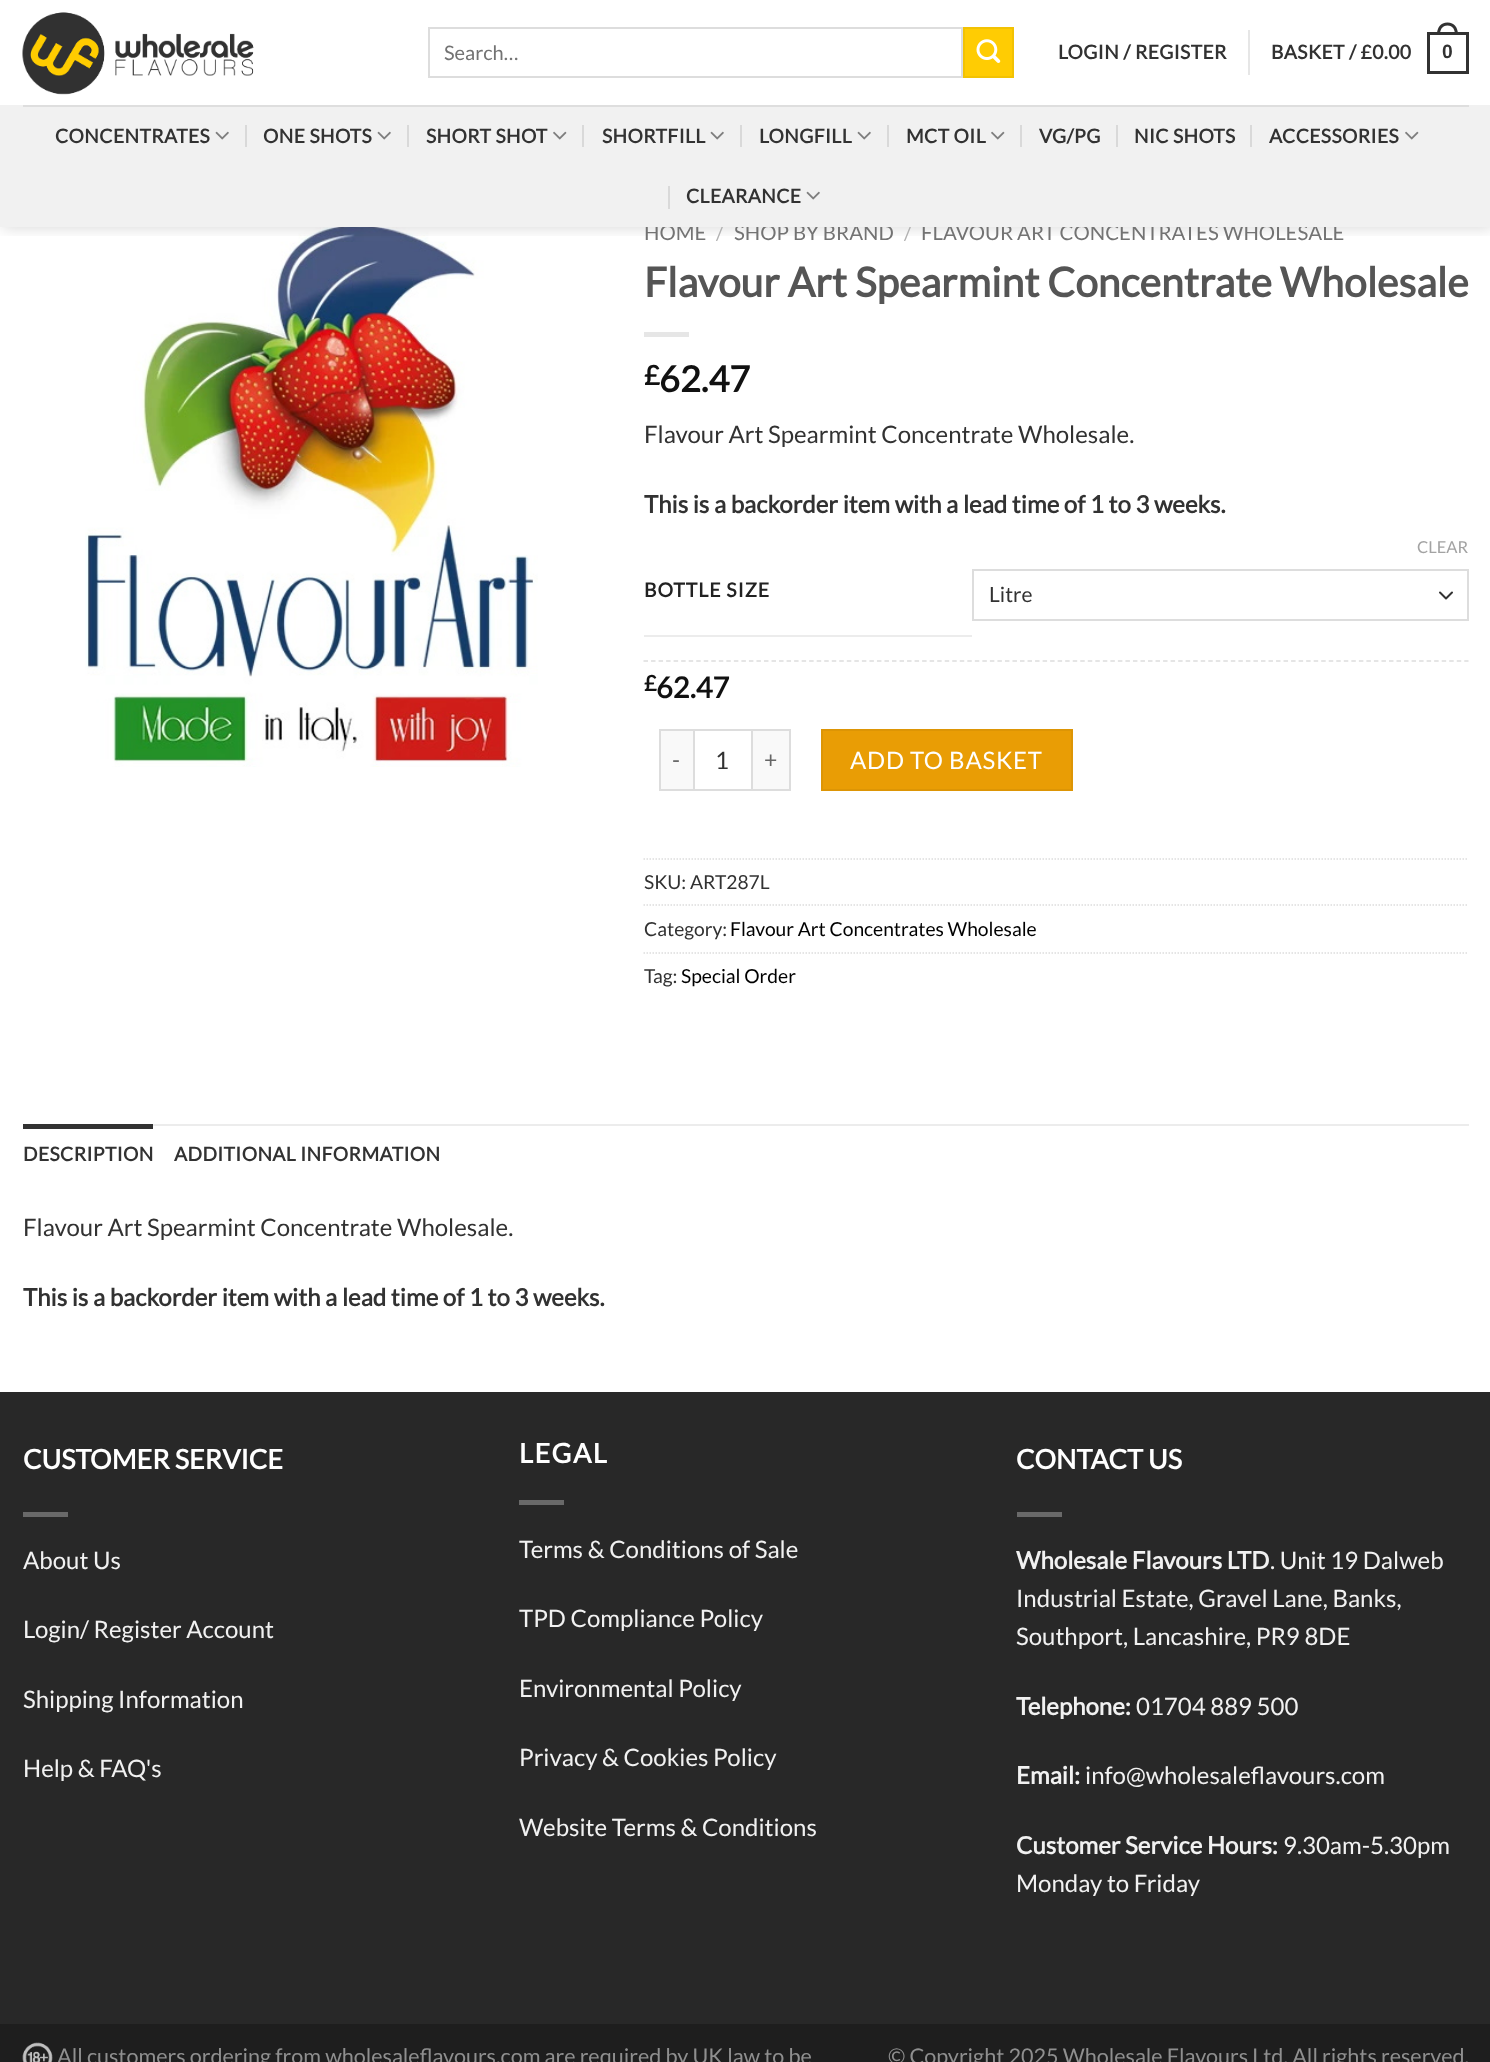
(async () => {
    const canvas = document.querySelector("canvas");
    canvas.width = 1490;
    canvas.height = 2062;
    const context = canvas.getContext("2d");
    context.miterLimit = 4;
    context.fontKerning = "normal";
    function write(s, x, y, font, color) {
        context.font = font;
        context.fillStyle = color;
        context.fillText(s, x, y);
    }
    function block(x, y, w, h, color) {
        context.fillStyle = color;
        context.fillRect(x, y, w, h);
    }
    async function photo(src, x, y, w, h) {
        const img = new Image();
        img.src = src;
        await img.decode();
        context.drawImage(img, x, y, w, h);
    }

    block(0, 0, 1490, 2062, "rgb(255, 255, 255)");
    await photo("media/5.png", 85, 227, 453, 540);
    context.save();
    context.beginPath();
    context.rect(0, 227, 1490, 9);
    context.clip();
    context.fillStyle = "rgba(0, 0, 0, 0.15)";
    context.filter = "blur(7.5px)";
    context.beginPath();
    context.rect(2, 2, 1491, 226);
    context.fill();
    context.filter = "none";
    context.restore();
    await photo("media/1.png", 22, 12, 232, 83);
    context.strokeStyle = "rgb(221, 221, 221)";
    context.lineWidth = 2;
    context.strokeRect(429, 28, 533, 49);
    write("Search…", 444, 60, "20px Lato", "rgb(115, 115, 115)");
    context.fillStyle = "rgb(255, 204, 3)";
    context.beginPath();
    context.rect(964, 28, 49, 49);
    context.fill();
    context.strokeStyle = "rgb(242, 194, 3)";
    context.stroke();
    await photo("media/2.png", 976, 39, 25, 24);
    context.letterSpacing = "0.4px";
    write("LOGIN / REGISTER", 1058, 59, "bold 19.25px Lato", "rgb(50, 50, 50)");
    block(1248, 30, 2, 45, "rgb(230, 230, 230)");
    write("BASKET / £0.00", 1271, 59, "bold 19.25px Lato", "rgb(50, 50, 50)");
    context.strokeStyle = "rgb(50, 50, 50)";
    context.lineWidth = 3;
    context.strokeRect(1428.5, 33.5, 39, 39);
    context.beginPath();
    context.moveTo(1447.5, 22.5);
    context.bezierCurveTo(1454.5, 22.5, 1458, 28, 1458, 34.5);
    context.lineTo(1437, 34.5);
    context.bezierCurveTo(1437, 28, 1440.5, 22.5, 1447.5, 22.5);
    context.closePath();
    context.moveTo(1447.5, 25.5);
    context.bezierCurveTo(1453, 25.5, 1455, 30, 1455, 34.5);
    context.lineTo(1440, 34.5);
    context.bezierCurveTo(1440, 30, 1442, 25.5, 1447.5, 25.5);
    context.closePath();
    context.fill("evenodd");
    write("0", 1442, 58, "bold 19.25px Liberation Sans", "rgb(50, 50, 50)");
    context.letterSpacing = "0px";
    write("HOME", 644, 240, "20.4px Lato", "rgb(115, 115, 115)");
    write("/", 716, 240, "20.4px Lato", "rgb(178, 178, 178)");
    write("SHOP BY BRAND", 734, 240, "20.4px Lato", "rgb(115, 115, 115)");
    write("/", 904, 240, "20.4px Lato", "rgb(178, 178, 178)");
    write("FLAVOUR ART CONCENTRATES WHOLESALE", 921, 240, "20.4px Lato", "rgb(115, 115, 115)");
    block(0, 105, 1490, 122, "rgb(241, 241, 241)");
    block(23, 105, 1446, 2, "rgb(222, 222, 222)");
    context.letterSpacing = "0.4px";
    write("CONCENTRATES", 55, 143, "bold 19.25px Lato", "rgb(50, 50, 50)");
    await photo("media/3.png", 215, 131, 14, 9);
    block(245, 125, 2, 22, "rgb(217, 217, 217)");
    write("ONE SHOTS", 263, 143, "bold 19.25px Lato", "rgb(50, 50, 50)");
    await photo("media/3.png", 377, 131, 14, 9);
    block(407, 125, 2, 22, "rgb(217, 217, 217)");
    write("SHORT SHOT", 426, 143, "bold 19.25px Lato", "rgb(50, 50, 50)");
    await photo("media/4.png", 553, 131, 14, 9);
    block(582, 125, 2, 22, "rgb(217, 217, 217)");
    write("SHORTFILL", 602, 143, "bold 19.25px Lato", "rgb(50, 50, 50)");
    await photo("media/3.png", 710, 131, 14, 9);
    block(740, 125, 2, 22, "rgb(217, 217, 217)");
    write("LONGFILL", 759, 143, "bold 19.25px Lato", "rgb(50, 50, 50)");
    await photo("media/3.png", 857, 131, 14, 9);
    block(887, 125, 2, 22, "rgb(217, 217, 217)");
    write("MCT OIL", 906, 143, "bold 19.25px Lato", "rgb(50, 50, 50)");
    await photo("media/4.png", 991, 131, 14, 9);
    block(1020, 125, 2, 22, "rgb(217, 217, 217)");
    write("VG/PG", 1039, 143, "bold 19.25px Lato", "rgb(50, 50, 50)");
    block(1116, 125, 2, 22, "rgb(217, 217, 217)");
    write("NIC SHOTS", 1134, 143, "bold 19.25px Lato", "rgb(50, 50, 50)");
    block(1250, 125, 2, 22, "rgb(217, 217, 217)");
    write("ACCESSORIES", 1269, 143, "bold 19.25px Lato", "rgb(50, 50, 50)");
    await photo("media/4.png", 1405, 131, 14, 9);
    block(668, 186, 2, 23, "rgb(217, 217, 217)");
    write("CLEARANCE", 686, 203, "bold 19.25px Lato", "rgb(50, 50, 50)");
    await photo("media/3.png", 806, 191, 14, 9);
    context.letterSpacing = "0px";
    write("Flavour Art Spearmint Concentrate Wholesale", 644, 297, "bold 40.8px Lato", "rgb(85, 85, 85)");
    block(644, 332, 45, 5, "rgb(230, 230, 230)");
    write("£", 644, 385, "bold 27px Lato", "rgb(17, 17, 17)");
    write("62.47", 659, 392, "bold 36px Lato", "rgb(17, 17, 17)");
    write("Flavour Art Spearmint Concentrate Wholesale.", 644, 443, "24px Lato", "rgb(50, 50, 50)");
    write("This is a backorder item with a lead time of 1 to 3 weeks.", 644, 513, "bold 24px Lato", "rgb(50, 50, 50)");
    block(644, 635, 328, 2, "rgb(236, 236, 236)");
    context.letterSpacing = "1px";
    write("BOTTLE SIZE", 644, 597, "bold 19.5px Lato", "rgb(34, 34, 34)");
    context.letterSpacing = "0px";
    write("CLEAR", 1417, 553, "16.5px Lato", "rgb(163, 163, 163)");
    context.beginPath();
    context.moveTo(1440, 592.5);
    context.lineTo(1446, 598.5);
    context.lineTo(1452, 592.5);
    context.strokeStyle = "rgb(51, 51, 51)";
    context.lineWidth = 2;
    context.lineCap = "round";
    context.lineJoin = "round";
    context.stroke();
    context.strokeStyle = "rgb(221, 221, 221)";
    context.lineJoin = "miter";
    context.strokeRect(973, 570, 495, 50);
    write("Litre", 989, 602, "21px Lato", "rgb(50, 50, 50)");
    context.beginPath();
    context.moveTo(643.5, 661);
    context.lineTo(1468.5, 661);
    context.lineWidth = 1.5;
    context.lineCap = "butt";
    context.setLineDash([4.5, 3.03]);
    context.stroke();
    write("£", 644, 691, "bold 21.6px Lato", "rgb(17, 17, 17)");
    write("62.47", 656, 698, "bold 29px Lato", "rgb(17, 17, 17)");
    block(661, 731, 32, 58, "rgb(249, 249, 249)");
    block(659, 729, 34, 2, "rgb(221, 221, 221)");
    block(659, 789, 34, 2, "rgb(221, 221, 221)");
    block(659, 729, 2, 62, "rgb(221, 221, 221)");
    context.letterSpacing = "1px";
    write("-", 672, 768, "23px Lato", "rgb(102, 102, 102)");
    context.lineWidth = 2;
    context.setLineDash([]);
    context.strokeRect(694, 730, 58, 60);
    context.letterSpacing = "0px";
    write("1", 715, 769, "24px Lato", "rgb(50, 50, 50)");
    block(753, 731, 36, 58, "rgb(249, 249, 249)");
    block(753, 729, 38, 2, "rgb(221, 221, 221)");
    block(789, 729, 2, 62, "rgb(221, 221, 221)");
    block(753, 789, 38, 2, "rgb(221, 221, 221)");
    context.letterSpacing = "1px";
    write("+", 764, 768, "23px Lato", "rgb(102, 102, 102)");
    context.fillStyle = "rgb(233, 157, 5)";
    context.beginPath();
    context.rect(822, 730, 250, 60);
    context.fill();
    context.strokeStyle = "rgb(221, 149, 5)";
    context.stroke();
    context.letterSpacing = "0.75px";
    write("ADD TO BASKET", 850, 769, "24px Lato", "rgb(255, 255, 255)");
    context.beginPath();
    context.moveTo(643.5, 859);
    context.lineTo(1468.5, 859);
    context.strokeStyle = "rgb(221, 221, 221)";
    context.lineWidth = 1.5;
    context.setLineDash([1.5, 1.5]);
    context.stroke();
    context.letterSpacing = "0px";
    write("SKU: ART287L", 644, 889, "19.25px Lato", "rgb(50, 50, 50)");
    context.beginPath();
    context.moveTo(643.5, 905);
    context.lineTo(1468.5, 905);
    context.stroke();
    write("Category:", 644, 936, "19.25px Lato", "rgb(50, 50, 50)");
    write("Flavour Art Concentrates Wholesale", 730, 936, "19.25px Lato", "rgb(0, 0, 0)");
    context.beginPath();
    context.moveTo(643.5, 953);
    context.lineTo(1468.5, 953);
    context.stroke();
    write("Tag:", 644, 983, "19.25px Lato", "rgb(50, 50, 50)");
    write("Special Order", 681, 983, "19.25px Lato", "rgb(0, 0, 0)");
    block(153, 1124, 1316, 2, "rgb(236, 236, 236)");
    block(23, 1124, 130, 5, "rgb(50, 50, 50)");
    context.letterSpacing = "0.4px";
    write("DESCRIPTION", 23, 1161, "bold 19.25px Lato", "rgb(50, 50, 50)");
    write("ADDITIONAL INFORMATION", 174, 1161, "bold 19.25px Lato", "rgb(50, 50, 50)");
    context.letterSpacing = "0px";
    write("Flavour Art Spearmint Concentrate Wholesale.", 23, 1236, "24px Lato", "rgb(50, 50, 50)");
    write("This is a backorder item with a lead time of 1 to 3 weeks.", 23, 1306, "bold 24px Lato", "rgb(50, 50, 50)");
    block(0, 1392, 1490, 632, "rgb(40, 40, 40)");
    write("CUSTOMER SERVICE", 23, 1469, "bold 27px Lato", "rgb(255, 255, 255)");
    block(23, 1512, 45, 5, "rgb(105, 105, 105)");
    write("About Us", 23, 1569, "24px Lato", "rgb(241, 241, 241)");
    write("Login/ Register Account", 23, 1638, "24px Lato", "rgb(241, 241, 241)");
    write("Shipping Information", 23, 1708, "24px Lato", "rgb(241, 241, 241)");
    write("Help & FAQ's", 23, 1777, "24px Lato", "rgb(241, 241, 241)");
    context.letterSpacing = "1.5px";
    write("LEGAL", 519, 1463, "bold 27px Lato", "rgb(255, 255, 255)");
    block(519, 1500, 45, 5, "rgb(105, 105, 105)");
    context.letterSpacing = "0px";
    write("Terms & Conditions of Sale", 519, 1558, "24px Lato", "rgb(241, 241, 241)");
    write("TPD Compliance Policy", 519, 1627, "24px Lato", "rgb(241, 241, 241)");
    write("Environmental Policy", 519, 1697, "24px Lato", "rgb(241, 241, 241)");
    write("Privacy & Cookies Policy", 519, 1766, "24px Lato", "rgb(241, 241, 241)");
    write("Website Terms & Conditions", 519, 1836, "24px Lato", "rgb(241, 241, 241)");
    write("CONTACT US", 1016, 1469, "bold 27px Lato", "rgb(255, 255, 255)");
    block(1017, 1512, 45, 5, "rgb(105, 105, 105)");
    write("Wholesale Flavours LTD", 1016, 1569, "bold 24px Lato", "rgb(241, 241, 241)");
    write(". Unit 19 Dalweb", 1270, 1569, "24px Lato", "rgb(241, 241, 241)");
    write("Industrial Estate, Gravel Lane, Banks,", 1016, 1607, "24px Lato", "rgb(241, 241, 241)");
    write("Southport, Lancashire, PR9 8DE", 1016, 1645, "24px Lato", "rgb(241, 241, 241)");
    write("Telephone:", 1016, 1715, "bold 24px Lato", "rgb(241, 241, 241)");
    write("01704 889 500", 1136, 1715, "24px Lato", "rgb(241, 241, 241)");
    write("Email:", 1016, 1784, "bold 24px Lato", "rgb(241, 241, 241)");
    write("info@wholesaleflavours.com", 1085, 1784, "24px Lato", "rgb(241, 241, 241)");
    write("Customer Service Hours:", 1016, 1854, "bold 24px Lato", "rgb(241, 241, 241)");
    write("9.30am-5.30pm", 1283, 1854, "24px Lato", "rgb(241, 241, 241)");
    write("Monday to Friday", 1016, 1892, "24px Lato", "rgb(241, 241, 241)");
    block(0, 2024, 1490, 38, "rgb(30, 30, 30)");
    await photo("media/6.png", 22, 2042, 31, 20);
    write("All customers ordering from wholesaleflavours.com are required by UK law to be", 57, 2064, "21.6px Lato", "rgb(143, 143, 143)");
    write("© Copyright 2025 Wholesale Flavours Ltd. All rights reserved.", 888, 2064, "21.6px Lato", "rgb(143, 143, 143)");
})();
